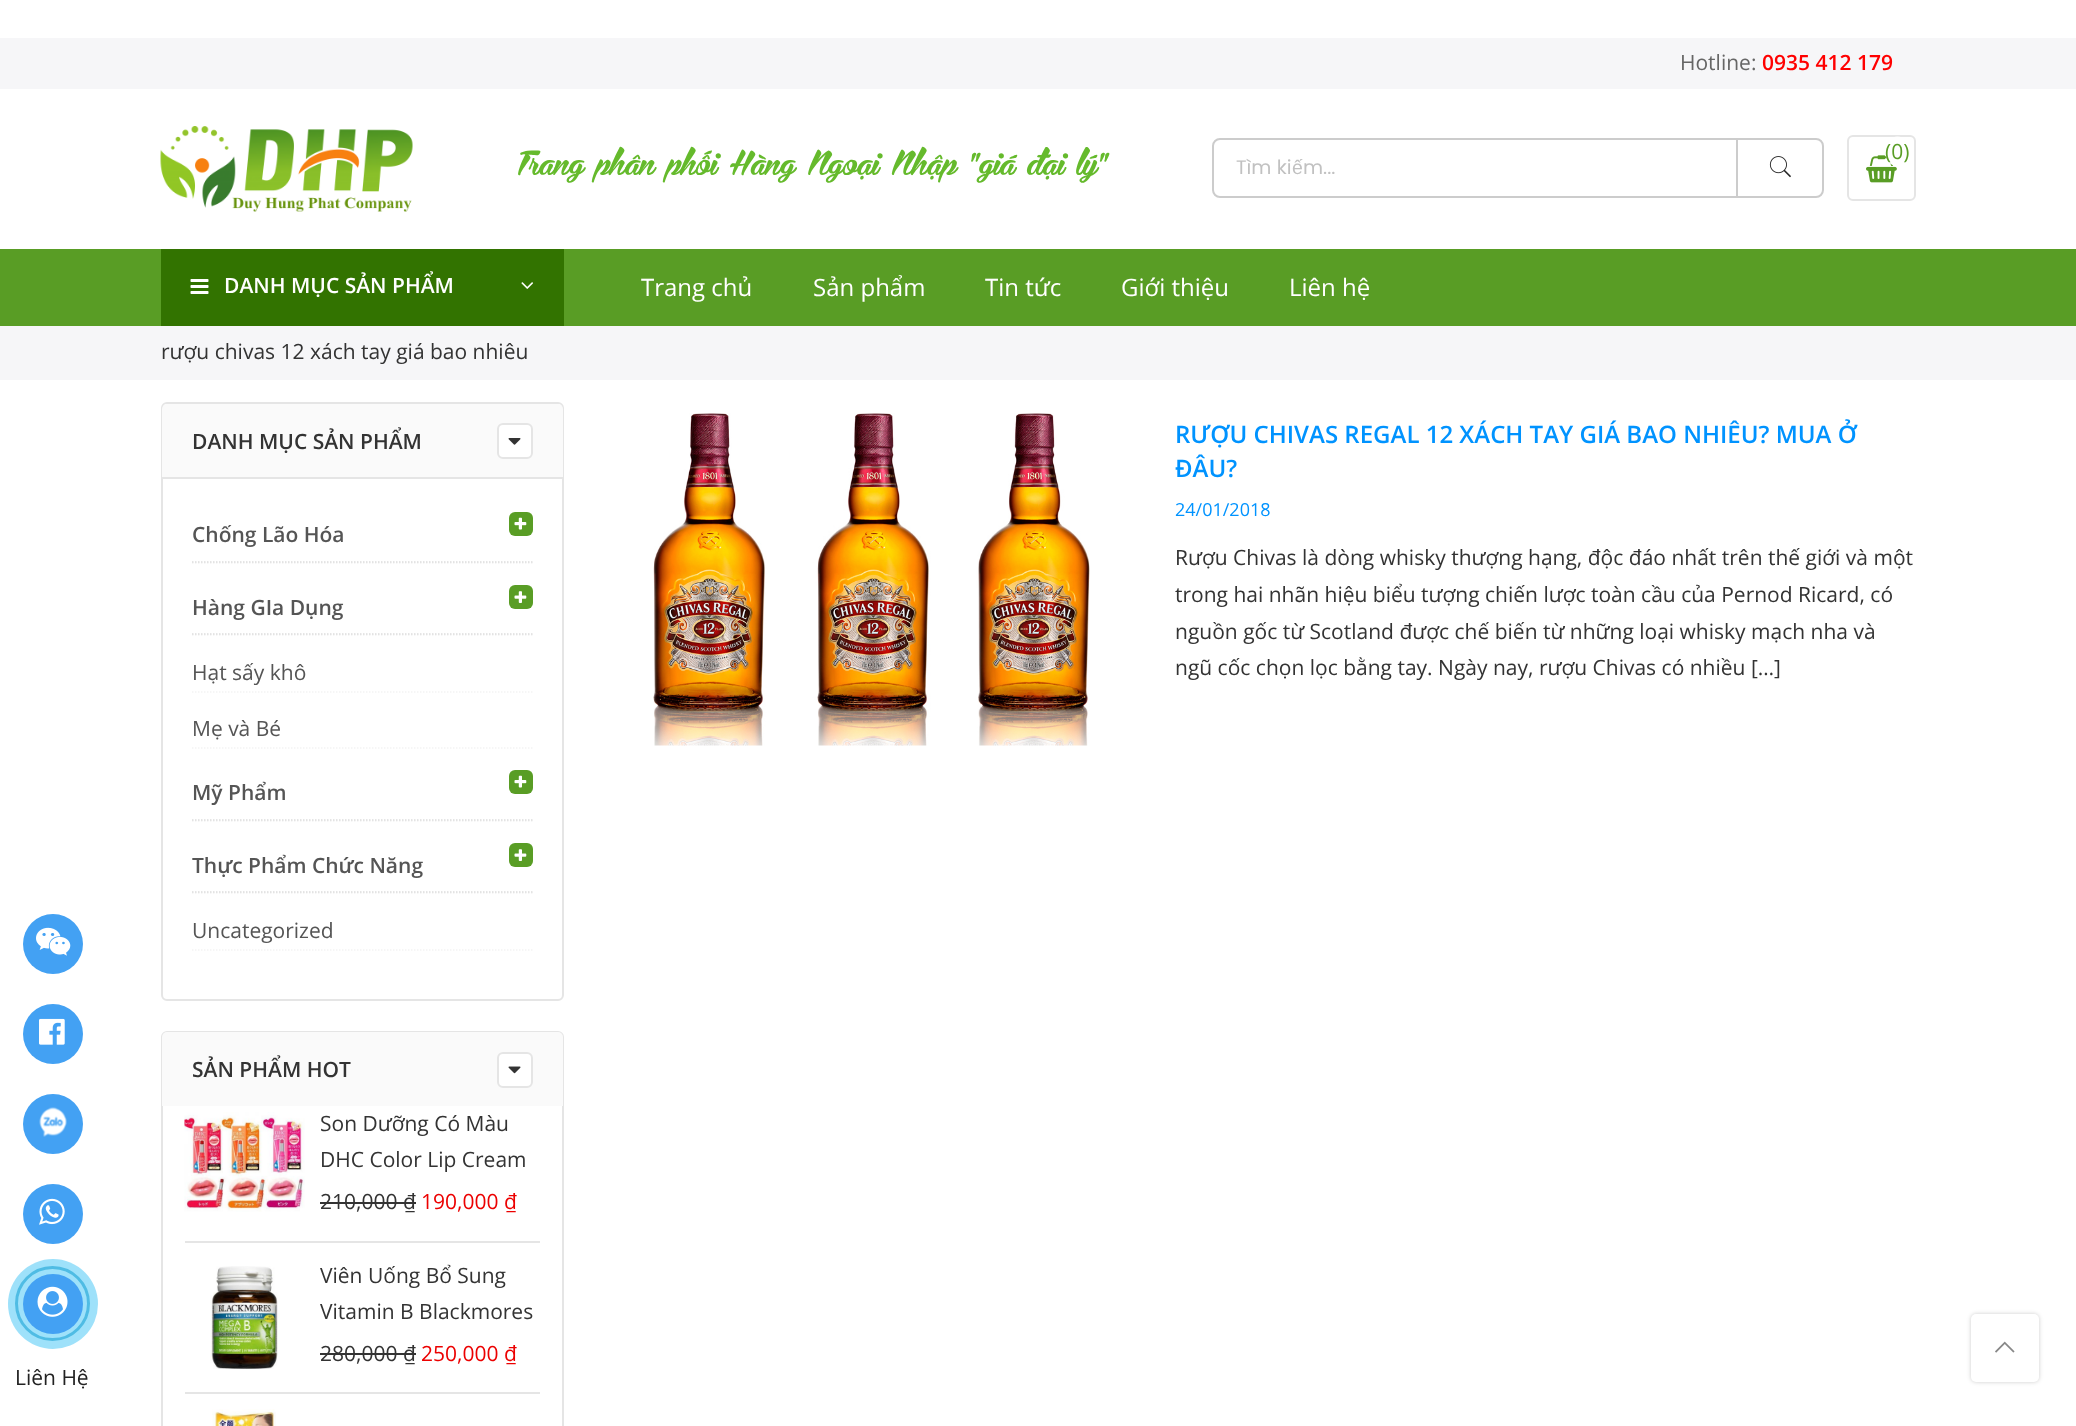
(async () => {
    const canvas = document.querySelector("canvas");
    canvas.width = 2076;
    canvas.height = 1426;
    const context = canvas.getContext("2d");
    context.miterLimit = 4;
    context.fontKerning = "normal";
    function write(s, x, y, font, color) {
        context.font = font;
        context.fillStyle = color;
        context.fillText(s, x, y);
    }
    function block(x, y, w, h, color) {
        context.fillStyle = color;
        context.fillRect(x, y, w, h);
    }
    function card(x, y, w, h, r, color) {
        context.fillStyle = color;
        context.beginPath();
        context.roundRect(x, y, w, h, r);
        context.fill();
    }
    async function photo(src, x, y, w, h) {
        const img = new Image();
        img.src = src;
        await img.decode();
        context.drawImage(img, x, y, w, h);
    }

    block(0, 0, 2076, 1426, "rgb(255, 255, 255)");
    context.fillStyle = "rgb(67, 161, 243)";
    context.beginPath();
    context.arc(53, 944, 30, 0, Math.PI * 2);
    context.fill();
    await photo("media/1.png", 36, 927, 35, 29);
    context.beginPath();
    context.arc(53, 1034, 30, 0, Math.PI * 2);
    context.fill();
    await photo("media/2.png", 39, 1018, 26, 27);
    context.beginPath();
    context.arc(53, 1124, 30, 0, Math.PI * 2);
    context.fill();
    await photo("media/3.png", 39, 1107, 28, 30);
    context.beginPath();
    context.arc(53, 1214, 30, 0, Math.PI * 2);
    context.fill();
    await photo("media/4.png", 39, 1198, 26, 27);
    context.beginPath();
    context.arc(52.5, 1303.5, 36, 0, Math.PI * 2);
    context.strokeStyle = "rgb(128, 196, 220)";
    context.lineWidth = 3;
    context.stroke();
    context.fillStyle = "rgba(0, 175, 242, 0.38)";
    context.beginPath();
    context.arc(53, 1304, 45, 0, Math.PI * 2);
    context.fill();
    context.fillStyle = "rgb(67, 161, 243)";
    context.beginPath();
    context.arc(53, 1304, 30, 0, Math.PI * 2);
    context.fill();
    await photo("media/5.png", 37, 1286, 31, 31);
    write("Liên Hệ", 15, 1385, "21px Open Sans", "rgb(34, 34, 34)");
    block(0, 38, 2076, 51, "rgb(246, 246, 248)");
    write("Hotline:", 1680, 70, "21px Open Sans", "rgb(102, 102, 102)");
    write("0935 412 179", 1762, 70, "600 21px Open Sans", "rgb(255, 0, 0)");
    await photo("media/6.png", 160, 126, 253, 86);
    write("Trang phân phối Hàng Ngoại Nhập \"giá đại lý\"", 518, 175, "30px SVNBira", "rgb(101, 186, 44)");
    context.beginPath();
    context.roundRect(1848, 136, 67, 64, 5);
    context.strokeStyle = "rgb(229, 229, 229)";
    context.lineWidth = 2;
    context.stroke();
    await photo("media/7.png", 1866, 155, 31, 28);
    context.fillStyle = "rgb(255, 255, 255)";
    context.beginPath();
    context.ellipse(1897.5, 151.5, 12, 15, 0, 0, Math.PI * 2);
    context.fill();
    write("(0)", 1885, 159, "21px Open Sans", "rgb(89, 157, 37)");
    context.beginPath();
    context.roundRect(1213, 139, 610, 58, 7);
    context.strokeStyle = "rgb(204, 204, 204)";
    context.stroke();
    write("Tìm ki", 1236, 174, "19.5px Poppins", "rgb(193, 193, 193)");
    write("ế", 1292, 174, "19.5px Liberation Sans", "rgb(193, 193, 193)");
    write("m...", 1303, 174, "19.5px Poppins", "rgb(193, 193, 193)");
    block(1736, 138, 2, 60, "rgb(204, 204, 204)");
    await photo("media/8.png", 1769, 156, 22, 22);
    block(0, 249, 2076, 77, "rgb(89, 157, 37)");
    block(161, 249, 403, 77, "rgb(50, 115, 0)");
    await photo("media/9.png", 190, 279, 19, 15);
    write("DANH MỤC SẢN PHẨM", 224, 293, "600 21px Open Sans", "rgb(255, 255, 255)");
    await photo("media/10.png", 521, 282, 12, 7);
    write("Trang chủ", 641, 296, "24px Open Sans", "rgb(255, 255, 255)");
    write("Sản phẩm", 813, 296, "24px Open Sans", "rgb(255, 255, 255)");
    write("Tin tức", 985, 296, "24px Open Sans", "rgb(255, 255, 255)");
    write("Giới thiệu", 1121, 296, "24px Open Sans", "rgb(255, 255, 255)");
    write("Liên hệ", 1289, 296, "24px Open Sans", "rgb(255, 255, 255)");
    block(0, 326, 2076, 54, "rgb(246, 246, 248)");
    write("rượu chivas 12 xách tay giá bao nhiêu", 161, 359, "21px Open Sans", "rgb(51, 51, 51)");
    context.beginPath();
    context.roundRect(162, 403, 401, 597, 5);
    context.strokeStyle = "rgb(229, 229, 229)";
    context.stroke();
    context.fillStyle = "rgb(250, 250, 250)";
    context.beginPath();
    context.roundRect(162, 404, 401, 73, [5, 5, 0, 0]);
    context.fill();
    write("DANH MỤC SẢN PHẨM", 192, 449, "600 21px Open Sans", "rgb(51, 51, 51)");
    context.fillStyle = "rgb(255, 255, 255)";
    context.beginPath();
    context.roundRect(498, 424, 34, 34, 5);
    context.fill();
    context.stroke();
    await photo("media/11.png", 508, 438, 13, 7);
    block(162, 477, 401, 2, "rgb(229, 229, 229)");
    context.beginPath();
    context.moveTo(192, 563);
    context.lineTo(532.5, 563);
    context.strokeStyle = "rgb(244, 244, 244)";
    context.lineWidth = 1.5;
    context.setLineDash([1.5, 1.5]);
    context.stroke();
    context.beginPath();
    context.moveTo(192, 562);
    context.lineTo(532.5, 562);
    context.strokeStyle = "rgb(221, 221, 221)";
    context.stroke();
    write("Chống Lão Hóa", 192, 542, "600 21px Open Sans", "rgb(85, 85, 85)");
    card(509, 512, 24, 24, 6, "rgb(89, 157, 37)");
    await photo("media/12.png", 514, 517, 13, 13);
    context.beginPath();
    context.moveTo(192, 635);
    context.lineTo(532.5, 635);
    context.strokeStyle = "rgb(244, 244, 244)";
    context.stroke();
    context.beginPath();
    context.moveTo(192, 634);
    context.lineTo(532.5, 634);
    context.strokeStyle = "rgb(221, 221, 221)";
    context.stroke();
    write("Hàng GIa Dụng", 192, 615, "600 21px Open Sans", "rgb(85, 85, 85)");
    card(509, 585, 24, 24, 6, "rgb(89, 157, 37)");
    await photo("media/13.png", 514, 591, 13, 12);
    context.beginPath();
    context.moveTo(192, 692);
    context.lineTo(532.5, 692);
    context.strokeStyle = "rgb(244, 244, 244)";
    context.stroke();
    write("Hạt sấy khô", 192, 680, "21px Open Sans", "rgb(85, 85, 85)");
    context.beginPath();
    context.moveTo(192, 748);
    context.lineTo(532.5, 748);
    context.stroke();
    write("Mẹ và Bé", 192, 736, "21px Open Sans", "rgb(85, 85, 85)");
    context.beginPath();
    context.moveTo(192, 821);
    context.lineTo(532.5, 821);
    context.stroke();
    context.beginPath();
    context.moveTo(192, 820);
    context.lineTo(532.5, 820);
    context.strokeStyle = "rgb(221, 221, 221)";
    context.stroke();
    write("Mỹ Phẩm", 192, 800, "600 21px Open Sans", "rgb(85, 85, 85)");
    card(509, 770, 24, 24, 6, "rgb(89, 157, 37)");
    await photo("media/12.png", 514, 775, 13, 13);
    context.beginPath();
    context.moveTo(192, 893);
    context.lineTo(532.5, 893);
    context.strokeStyle = "rgb(244, 244, 244)";
    context.stroke();
    context.beginPath();
    context.moveTo(192, 892);
    context.lineTo(532.5, 892);
    context.strokeStyle = "rgb(221, 221, 221)";
    context.stroke();
    write("Thực Phẩm Chức Năng", 192, 873, "600 21px Open Sans", "rgb(85, 85, 85)");
    card(509, 843, 24, 24, 6, "rgb(89, 157, 37)");
    await photo("media/13.png", 514, 849, 13, 12);
    context.beginPath();
    context.moveTo(192, 950);
    context.lineTo(532.5, 950);
    context.strokeStyle = "rgb(244, 244, 244)";
    context.stroke();
    write("Uncategorized", 192, 938, "21px Open Sans", "rgb(85, 85, 85)");
    context.beginPath();
    context.roundRect(162, 1032, 401, 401, 5);
    context.strokeStyle = "rgb(229, 229, 229)";
    context.lineWidth = 2;
    context.setLineDash([]);
    context.stroke();
    context.fillStyle = "rgb(250, 250, 250)";
    context.beginPath();
    context.roundRect(162, 1032, 401, 74, [5, 5, 0, 0]);
    context.fill();
    write("SẢN PHẨM HOT", 192, 1077, "600 21px Open Sans", "rgb(51, 51, 51)");
    context.fillStyle = "rgb(255, 255, 255)";
    context.beginPath();
    context.roundRect(498, 1053, 34, 34, 5);
    context.fill();
    context.stroke();
    await photo("media/14.png", 508, 1066, 13, 8);
    block(185, 1241, 355, 2, "rgb(229, 229, 229)");
    await photo("media/15.png", 184, 1112, 121, 100);
    write("Son Dưỡng Có Màu", 320, 1131, "21px Open Sans", "rgb(51, 51, 51)");
    write("DHC Color Lip Cream", 320, 1167, "21px Open Sans", "rgb(51, 51, 51)");
    write("210,000 ₫", 320, 1209, "21px Open Sans", "rgb(51, 51, 51)");
    block(320, 1202, 96, 2, "rgb(51, 51, 51)");
    write("190,000 ₫", 421, 1209, "21px Open Sans", "rgb(236, 1, 1)");
    block(185, 1392, 355, 2, "rgb(229, 229, 229)");
    await photo("media/16.png", 210, 1266, 70, 103);
    write("Viên Uống Bổ Sung", 320, 1283, "21px Open Sans", "rgb(51, 51, 51)");
    write("Vitamin B Blackmores", 320, 1319, "21px Open Sans", "rgb(51, 51, 51)");
    write("280,000 ₫", 320, 1361, "21px Open Sans", "rgb(51, 51, 51)");
    block(320, 1353, 96, 2, "rgb(51, 51, 51)");
    write("250,000 ₫", 421, 1361, "21px Open Sans", "rgb(236, 1, 1)");
    await photo("media/17.png", 212, 1409, 64, 17);
    await photo("media/18.png", 653, 413, 437, 333);
    write("RƯỢU CHIVAS REGAL 12 XÁCH TAY GIÁ BAO NHIÊU? MUA Ở", 1175, 443, "600 24px Open Sans", "rgb(0, 147, 255)");
    write("ĐÂU?", 1175, 477, "600 24px Open Sans", "rgb(0, 147, 255)");
    write("24/01/2018", 1175, 516, "18px Open Sans", "rgb(0, 147, 255)");
    write("Rượu Chivas là dòng whisky thượng hạng, độc đáo nhất trên thế giới và một", 1175, 565, "21px Open Sans", "rgb(51, 51, 51)");
    write("trong hai nhãn hiệu biểu tượng chiến lược toàn cầu của Pernod Ricard, có", 1175, 602, "21px Open Sans", "rgb(51, 51, 51)");
    write("nguồn gốc từ Scotland được chế biến từ những loại whisky mạch nha và", 1175, 639, "21px Open Sans", "rgb(51, 51, 51)");
    write("ngũ cốc chọn lọc bằng tay. Ngày nay, rượu Chivas có nhiều […]", 1175, 675, "21px Open Sans", "rgb(51, 51, 51)");
    context.fillStyle = "rgba(0, 0, 0, 0.2)";
    context.filter = "blur(2px)";
    context.beginPath();
    context.roundRect(1971, 1314, 68, 68, 5);
    context.fill();
    context.filter = "none";
    card(1971, 1314, 68, 68, 5, "rgb(255, 255, 255)");
    await photo("media/19.png", 1995, 1341, 20, 12);
})();
